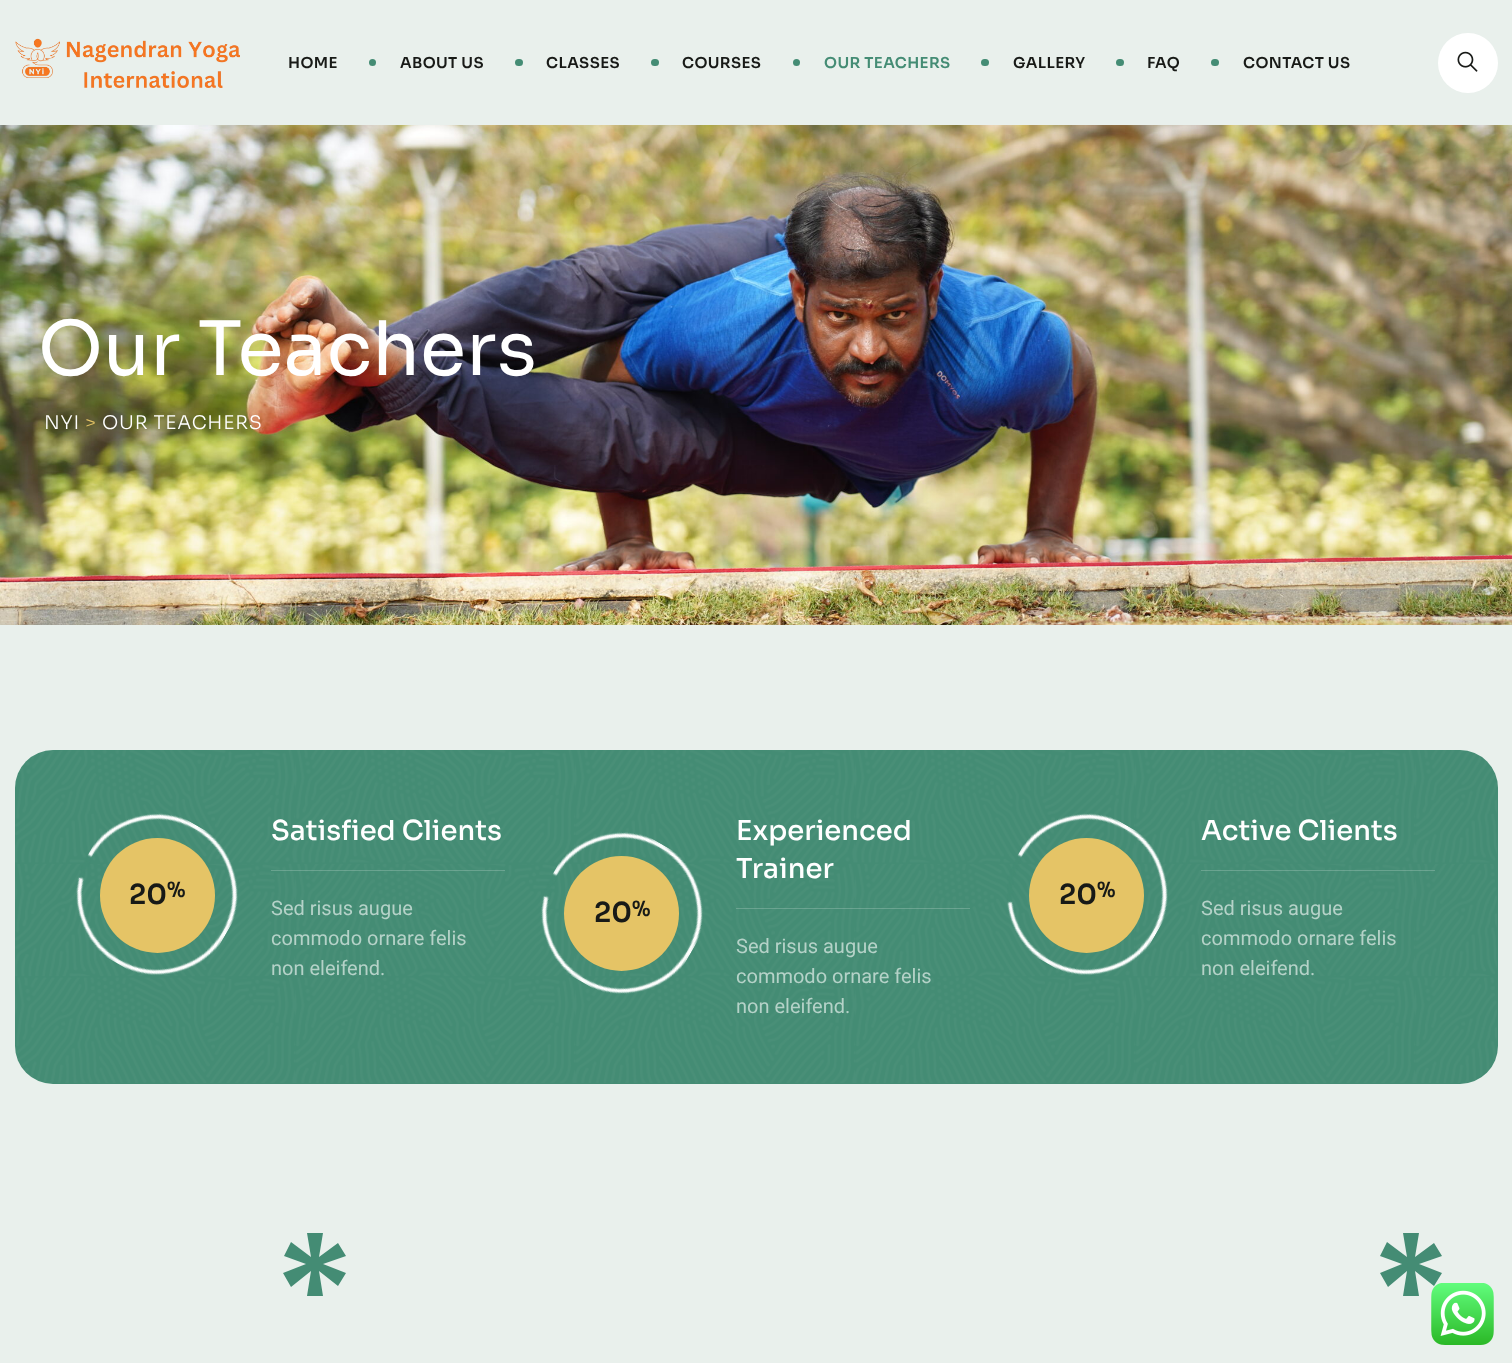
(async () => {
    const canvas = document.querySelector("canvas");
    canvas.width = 1512;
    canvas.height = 1363;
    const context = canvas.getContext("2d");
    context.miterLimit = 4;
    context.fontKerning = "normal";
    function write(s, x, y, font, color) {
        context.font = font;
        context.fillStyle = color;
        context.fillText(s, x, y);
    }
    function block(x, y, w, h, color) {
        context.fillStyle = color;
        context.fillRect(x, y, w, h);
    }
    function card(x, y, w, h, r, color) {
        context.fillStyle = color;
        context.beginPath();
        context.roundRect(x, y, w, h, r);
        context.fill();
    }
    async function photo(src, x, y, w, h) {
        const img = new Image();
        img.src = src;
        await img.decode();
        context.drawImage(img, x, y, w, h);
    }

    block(0, 0, 1512, 1363, "rgb(233, 240, 236)");
    await photo("media/1.png", 15, 38, 225, 50);
    context.letterSpacing = "0.4px";
    write("HOME", 288, 68, "600 15px Sora", "rgb(24, 26, 23)");
    context.fillStyle = "rgb(68, 140, 116)";
    context.beginPath();
    context.arc(372.5, 62.5, 3.5, 0, Math.PI * 2);
    context.fill();
    write("ABOUT US", 400, 68, "600 15px Sora", "rgb(24, 26, 23)");
    card(515, 59, 8, 7, 3.5, "rgb(68, 140, 116)");
    write("CLASSES", 546, 68, "600 15px Sora", "rgb(24, 26, 23)");
    card(651, 59, 8, 7, 3.5, "rgb(68, 140, 116)");
    write("COURSES", 682, 68, "600 15px Sora", "rgb(24, 26, 23)");
    context.fillStyle = "rgb(68, 140, 116)";
    context.beginPath();
    context.arc(796.5, 62.5, 3.5, 0, Math.PI * 2);
    context.fill();
    write("OUR TEACHERS", 824, 68, "600 15px Sora", "rgb(68, 140, 116)");
    card(981, 59, 8, 7, 3.5, "rgb(68, 140, 116)");
    write("GALLERY", 1013, 68, "600 15px Sora", "rgb(24, 26, 23)");
    card(1116, 59, 8, 7, 3.5, "rgb(68, 140, 116)");
    write("FAQ", 1147, 68, "600 15px Sora", "rgb(24, 26, 23)");
    card(1211, 59, 8, 7, 3.5, "rgb(68, 140, 116)");
    write("CONTACT US", 1243, 68, "600 15px Sora", "rgb(24, 26, 23)");
    context.fillStyle = "rgb(255, 255, 255)";
    context.beginPath();
    context.arc(1468, 63, 30, 0, Math.PI * 2);
    context.fill();
    await photo("media/2.png", 1457, 51, 21, 21);
    await photo("media/3.png", 0, 125, 1512, 500);
    context.letterSpacing = "0px";
    write("Our Teachers", 38, 375, "75px Sora", "rgb(255, 255, 255)");
    context.letterSpacing = "0.75px";
    write("NYI", 44, 429, "300 18.75px Sora", "rgb(255, 255, 255)");
    write(">", 85, 429, "300 18.75px Sora", "rgb(229, 196, 102)");
    write("OUR TEACHERS", 102, 429, "300 18.75px Sora", "rgb(255, 255, 255)");
    card(15, 750, 1483, 334, 38, "rgb(68, 140, 116)");
    await photo("media/4.png", 15, 750, 1482, 333);
    await photo("media/5.png", 76, 813, 162, 163);
    context.fillStyle = "rgb(229, 196, 102)";
    context.beginPath();
    context.arc(157.5, 895.5, 57.5, 0, Math.PI * 2);
    context.fill();
    context.letterSpacing = "0px";
    write("20", 129, 904, "600 27.5px Sora", "rgb(24, 26, 23)");
    write("%", 167, 897, "600 21px Sora", "rgb(24, 26, 23)");
    block(271, 870, 234, 1, "rgba(255, 255, 255, 0.2)");
    write("Satisfied Clients", 271, 840, "500 27.5px Sora", "rgb(255, 255, 255)");
    write("Sed risus augue", 271, 915, "20px Roboto", "rgb(181, 210, 200)");
    write("commodo ornare felis", 271, 945, "20px Roboto", "rgb(181, 210, 200)");
    write("non eleifend.", 271, 975, "20px Roboto", "rgb(181, 210, 200)");
    await photo("media/6.png", 541, 832, 162, 162);
    context.fillStyle = "rgb(229, 196, 102)";
    context.beginPath();
    context.arc(621.5, 913.5, 57.5, 0, Math.PI * 2);
    context.fill();
    write("20", 594, 922, "600 27.5px Sora", "rgb(24, 26, 23)");
    write("%", 632, 916, "600 21px Sora", "rgb(24, 26, 23)");
    block(736, 908, 234, 1, "rgba(255, 255, 255, 0.2)");
    write("Experienced", 736, 840, "500 27.5px Sora", "rgb(255, 255, 255)");
    write("Trainer", 736, 878, "500 27.5px Sora", "rgb(255, 255, 255)");
    write("Sed risus augue", 736, 953, "20px Roboto", "rgb(181, 210, 200)");
    write("commodo ornare felis", 736, 983, "20px Roboto", "rgb(181, 210, 200)");
    write("non eleifend.", 736, 1013, "20px Roboto", "rgb(181, 210, 200)");
    await photo("media/7.png", 1007, 813, 161, 163);
    context.fillStyle = "rgb(229, 196, 102)";
    context.beginPath();
    context.arc(1086.5, 895.5, 57.5, 0, Math.PI * 2);
    context.fill();
    write("20", 1059, 904, "600 27.5px Sora", "rgb(24, 26, 23)");
    write("%", 1097, 897, "600 21px Sora", "rgb(24, 26, 23)");
    block(1201, 870, 234, 1, "rgba(255, 255, 255, 0.2)");
    write("Active Clients", 1201, 840, "500 27.5px Sora", "rgb(255, 255, 255)");
    write("Sed risus augue", 1201, 915, "20px Roboto", "rgb(181, 210, 200)");
    write("commodo ornare felis", 1201, 945, "20px Roboto", "rgb(181, 210, 200)");
    write("non eleifend.", 1201, 975, "20px Roboto", "rgb(181, 210, 200)");
    context.fillStyle = "rgb(68, 140, 116)";
    context.beginPath();
    context.moveTo(338, 1243);
    context.lineTo(346, 1256);
    context.lineTo(323, 1264);
    context.lineTo(346, 1273);
    context.lineTo(338, 1286);
    context.lineTo(319, 1271);
    context.lineTo(323, 1296);
    context.lineTo(307, 1296);
    context.lineTo(311, 1271);
    context.lineTo(291, 1287);
    context.lineTo(283, 1273);
    context.lineTo(306, 1264);
    context.lineTo(284, 1256);
    context.lineTo(291, 1242);
    context.lineTo(311, 1257);
    context.lineTo(307, 1233);
    context.lineTo(323, 1233);
    context.lineTo(319, 1257);
    context.closePath();
    context.fill();
    context.beginPath();
    context.moveTo(1434, 1243);
    context.lineTo(1442, 1256);
    context.lineTo(1419, 1264);
    context.lineTo(1442, 1273);
    context.lineTo(1434, 1286);
    context.lineTo(1415, 1271);
    context.lineTo(1419, 1296);
    context.lineTo(1403, 1296);
    context.lineTo(1407, 1271);
    context.lineTo(1388, 1287);
    context.lineTo(1380, 1273);
    context.lineTo(1402, 1264);
    context.lineTo(1380, 1256);
    context.lineTo(1387, 1242);
    context.lineTo(1407, 1257);
    context.lineTo(1403, 1233);
    context.lineTo(1419, 1233);
    context.lineTo(1415, 1257);
    context.closePath();
    context.fill();
    await photo("media/8.png", 1431, 1283, 63, 62);
})();
